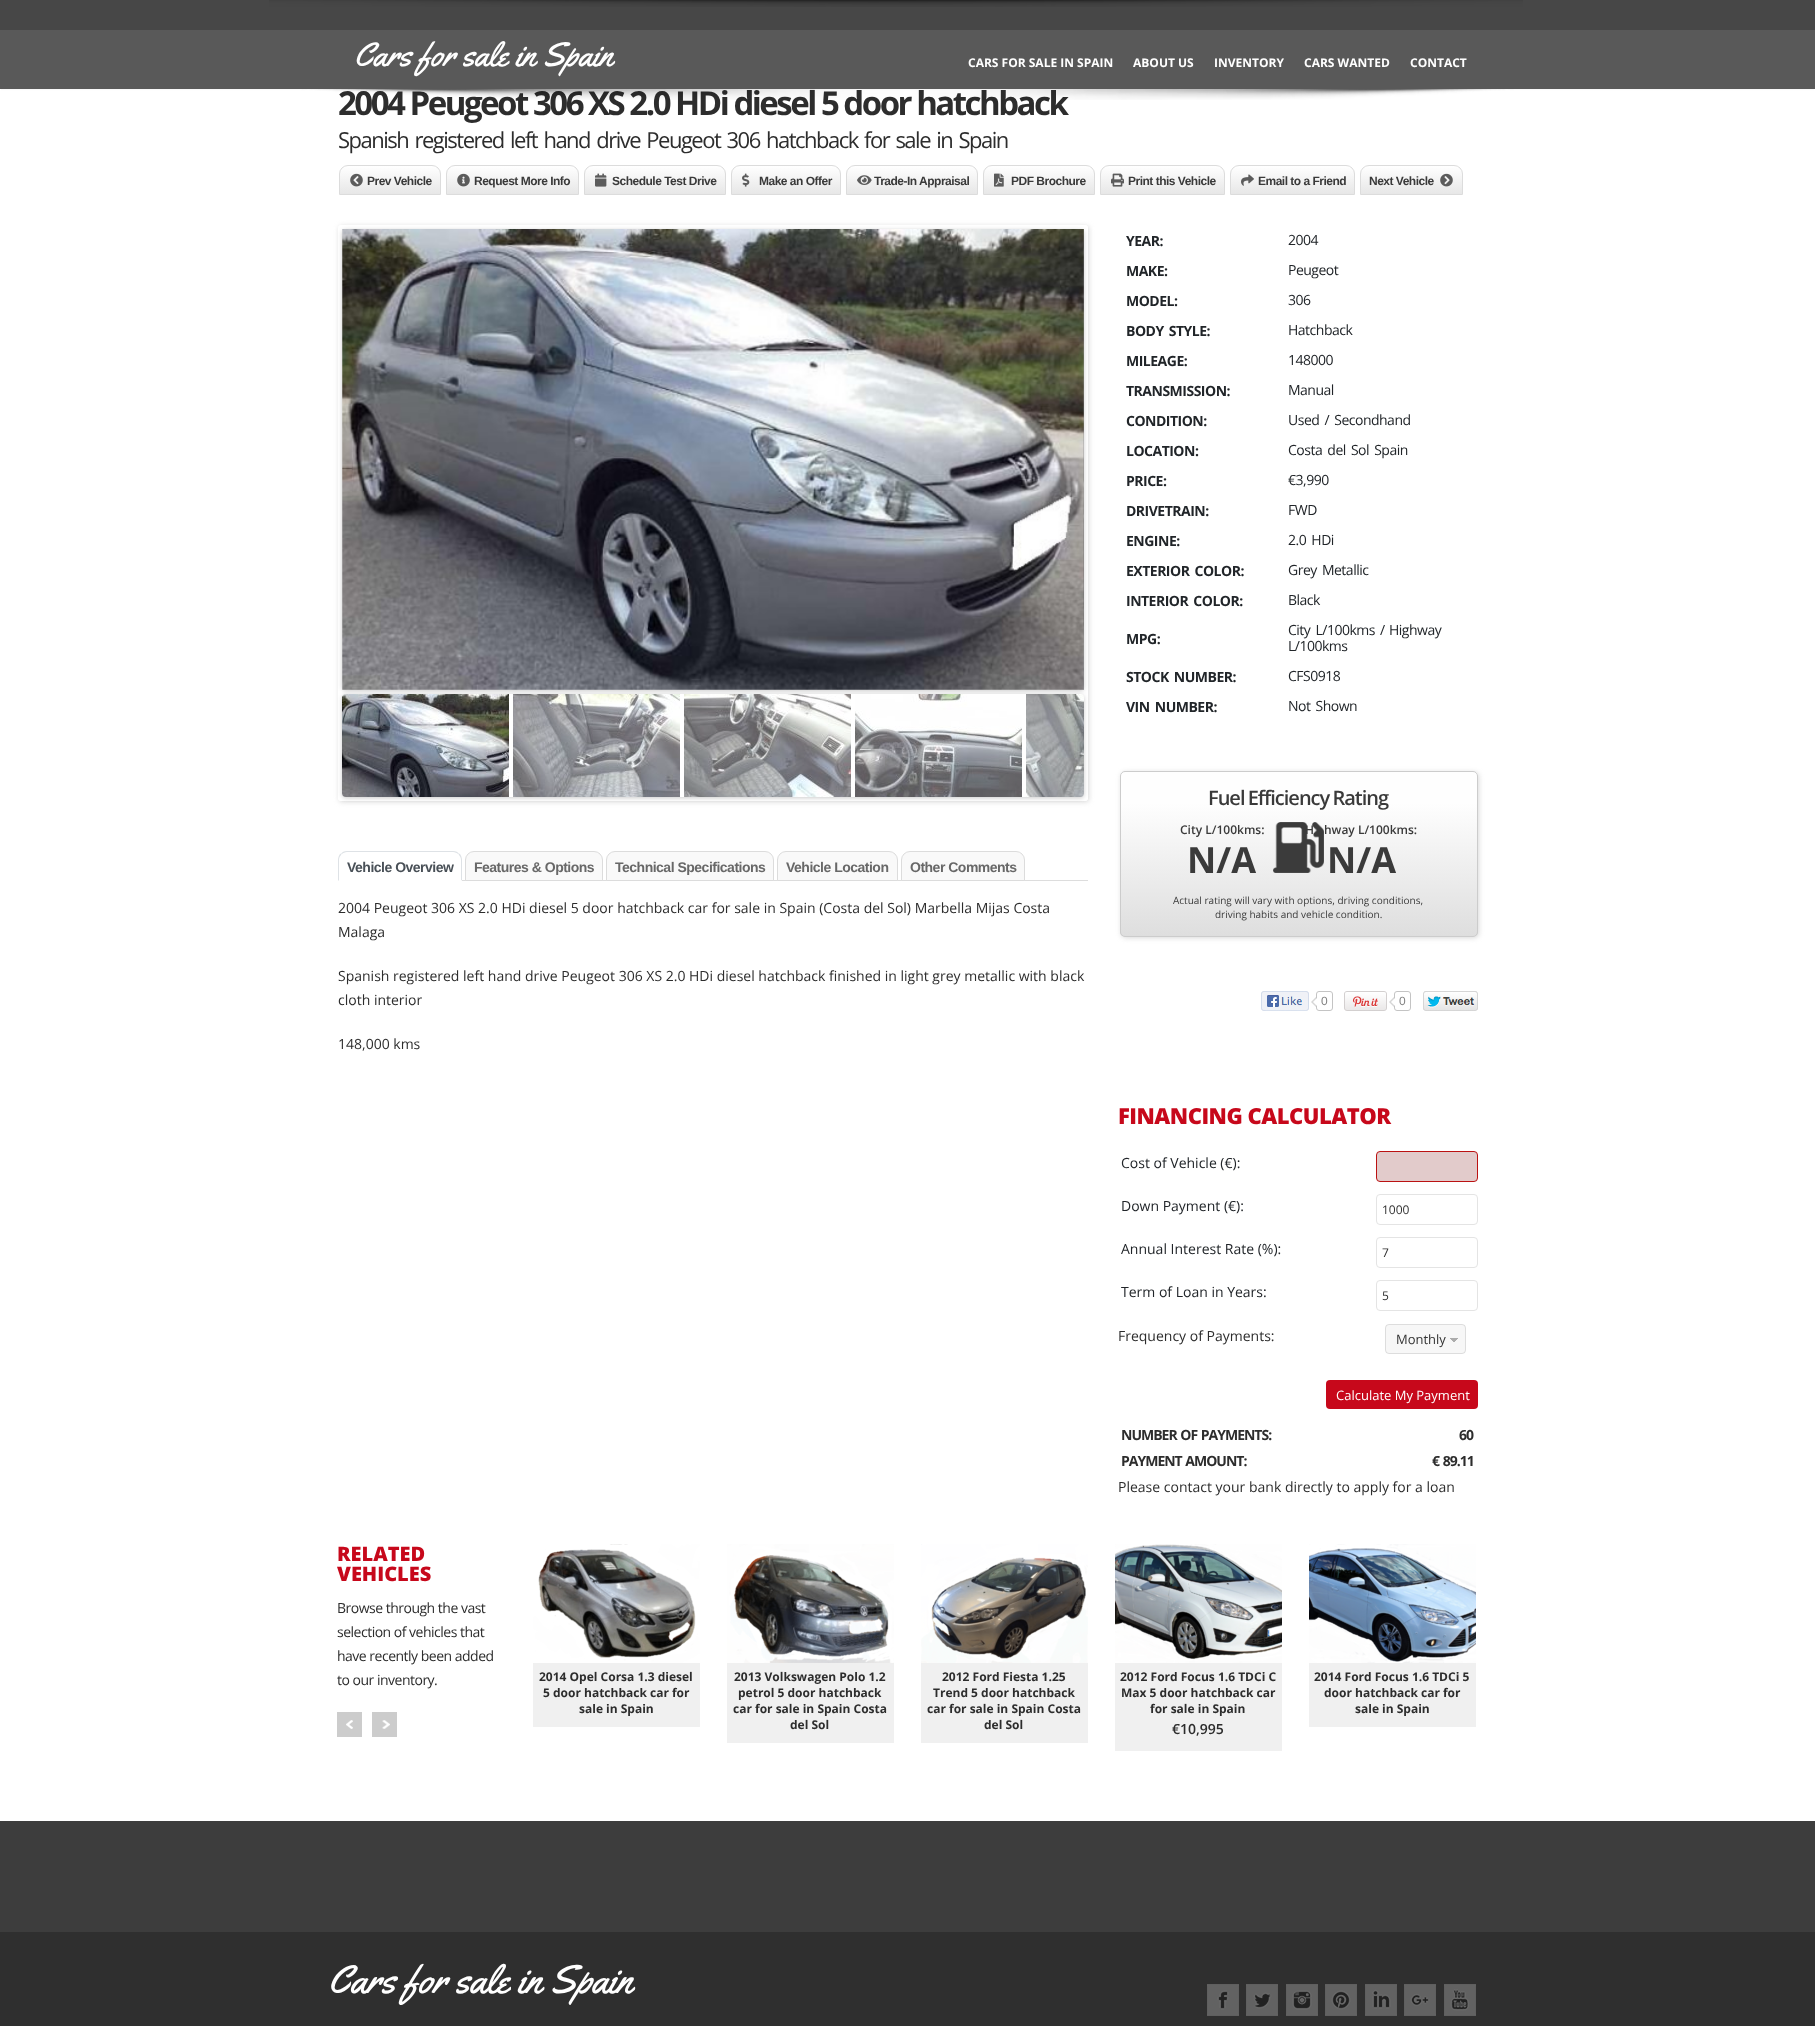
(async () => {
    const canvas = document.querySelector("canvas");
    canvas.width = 1815;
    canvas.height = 2026;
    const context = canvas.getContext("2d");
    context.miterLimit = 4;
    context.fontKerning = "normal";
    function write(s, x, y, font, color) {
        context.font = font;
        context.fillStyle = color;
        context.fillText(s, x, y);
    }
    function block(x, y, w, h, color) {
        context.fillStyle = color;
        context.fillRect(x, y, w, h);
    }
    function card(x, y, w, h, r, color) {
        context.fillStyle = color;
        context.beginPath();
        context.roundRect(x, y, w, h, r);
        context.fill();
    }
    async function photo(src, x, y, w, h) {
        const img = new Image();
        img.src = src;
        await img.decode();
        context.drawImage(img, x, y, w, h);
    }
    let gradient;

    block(0, 0, 1815, 2026, "rgb(255, 255, 255)");
    block(0, 30, 1815, 59, "rgb(89, 89, 89)");
    block(0, 0, 1815, 30, "rgb(71, 71, 71)");
    await photo("media/1.png", 269, 0, 1254, 7);
    write("Cars for sale in Spain", 354, 66, "34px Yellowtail", "rgb(255, 255, 255)");
    write("CARS FOR SALE IN SPAIN", 968, 67, "bold 12px Open Sans", "rgb(255, 255, 255)");
    write("ABOUT US", 1133, 67, "bold 12px Open Sans", "rgb(255, 255, 255)");
    write("INVENTORY", 1214, 67, "bold 12px Open Sans", "rgb(255, 255, 255)");
    write("CARS WANTED", 1304, 67, "bold 12px Open Sans", "rgb(255, 255, 255)");
    write("CONTACT", 1410, 67, "bold 12px Open Sans", "rgb(255, 255, 255)");
    context.letterSpacing = "-2.5px";
    write("2004 Peugeot 306 XS 2.0 HDi diesel 5 door hatchback", 338, 115, "bold 33px Open Sans", "rgb(45, 45, 45)");
    await photo("media/2.png", 1, 89, 1813, 11);
    context.letterSpacing = "-1.5px";
    context.wordSpacing = "2px";
    write("Spanish registered left hand drive Peugeot 306 hatchback for sale in Spain", 338, 148, "22px Open Sans", "rgb(45, 45, 45)");
    context.save();
    context.beginPath();
    context.roundRect(339, 165, 102, 30, [9, 9, 0, 0]);
    context.clip();
    gradient = context.createLinearGradient(390, 166, 390, 194);
    gradient.addColorStop(0, "rgb(30, 87, 153)");
    gradient.addColorStop(0, "rgb(255, 255, 255)");
    gradient.addColorStop(0.99, "rgb(231, 231, 231)");
    gradient.addColorStop(1, "rgb(231, 231, 231)");
    context.fillStyle = gradient;
    context.fillRect(339, 166, 102, 28);
    context.restore();
    context.beginPath();
    context.roundRect(339.5, 165.5, 101, 29, [8.5, 8.5, 0, 0]);
    context.strokeStyle = "rgb(220, 220, 220)";
    context.stroke();
    await photo("media/3.png", 350, 173, 13, 14);
    context.letterSpacing = "-0.5px";
    context.wordSpacing = "0px";
    write("Prev Vehicle", 367, 185, "bold 12px Liberation Sans", "rgb(58, 58, 58)");
    context.save();
    context.beginPath();
    context.roundRect(446, 165, 133, 30, [9, 9, 0, 0]);
    context.clip();
    gradient = context.createLinearGradient(513, 166, 513, 194);
    gradient.addColorStop(0, "rgb(30, 87, 153)");
    gradient.addColorStop(0, "rgb(255, 255, 255)");
    gradient.addColorStop(0.99, "rgb(231, 231, 231)");
    gradient.addColorStop(1, "rgb(231, 231, 231)");
    context.fillStyle = gradient;
    context.fillRect(446, 166, 133, 28);
    context.restore();
    context.beginPath();
    context.roundRect(446.5, 165.5, 132, 29, [8.5, 8.5, 0, 0]);
    context.stroke();
    await photo("media/4.png", 457, 173, 13, 14);
    write("Request More Info", 474, 185, "bold 12px Liberation Sans", "rgb(58, 58, 58)");
    context.save();
    context.beginPath();
    context.roundRect(584, 165, 142, 30, [9, 9, 0, 0]);
    context.clip();
    gradient = context.createLinearGradient(655, 166, 655, 194);
    gradient.addColorStop(0, "rgb(30, 87, 153)");
    gradient.addColorStop(0, "rgb(255, 255, 255)");
    gradient.addColorStop(0.99, "rgb(231, 231, 231)");
    gradient.addColorStop(1, "rgb(231, 231, 231)");
    context.fillStyle = gradient;
    context.fillRect(584, 166, 142, 28);
    context.restore();
    context.beginPath();
    context.roundRect(584.5, 165.5, 141, 29, [8.5, 8.5, 0, 0]);
    context.stroke();
    await photo("media/5.png", 595, 173, 12, 14);
    write("Schedule Test Drive", 612, 185, "bold 12px Liberation Sans", "rgb(58, 58, 58)");
    context.save();
    context.beginPath();
    context.roundRect(731, 165, 110, 30, [9, 9, 0, 0]);
    context.clip();
    gradient = context.createLinearGradient(786, 166, 786, 194);
    gradient.addColorStop(0, "rgb(30, 87, 153)");
    gradient.addColorStop(0, "rgb(255, 255, 255)");
    gradient.addColorStop(0.99, "rgb(231, 231, 231)");
    gradient.addColorStop(1, "rgb(231, 231, 231)");
    context.fillStyle = gradient;
    context.fillRect(731, 166, 110, 28);
    context.restore();
    context.beginPath();
    context.roundRect(731.5, 165.5, 109, 29, [8.5, 8.5, 0, 0]);
    context.stroke();
    await photo("media/6.png", 742, 173, 8, 14);
    write("Make an Offer", 759, 185, "bold 12px Liberation Sans", "rgb(58, 58, 58)");
    context.save();
    context.beginPath();
    context.roundRect(846, 165, 132, 30, [9, 9, 0, 0]);
    context.clip();
    gradient = context.createLinearGradient(912, 166, 912, 194);
    gradient.addColorStop(0, "rgb(30, 87, 153)");
    gradient.addColorStop(0, "rgb(255, 255, 255)");
    gradient.addColorStop(0.99, "rgb(231, 231, 231)");
    gradient.addColorStop(1, "rgb(231, 231, 231)");
    context.fillStyle = gradient;
    context.fillRect(846, 166, 132, 28);
    context.restore();
    context.beginPath();
    context.roundRect(846.5, 165.5, 131, 29, [8.5, 8.5, 0, 0]);
    context.stroke();
    await photo("media/7.png", 857, 175, 15, 10);
    write("Trade-In Appraisal", 874, 185, "bold 12px Liberation Sans", "rgb(58, 58, 58)");
    context.save();
    context.beginPath();
    context.roundRect(983, 165, 112, 30, [9, 9, 0, 0]);
    context.clip();
    gradient = context.createLinearGradient(1039, 166, 1039, 194);
    gradient.addColorStop(0, "rgb(30, 87, 153)");
    gradient.addColorStop(0, "rgb(255, 255, 255)");
    gradient.addColorStop(0.99, "rgb(231, 231, 231)");
    gradient.addColorStop(1, "rgb(231, 231, 231)");
    context.fillStyle = gradient;
    context.fillRect(983, 166, 112, 28);
    context.restore();
    context.beginPath();
    context.roundRect(983.5, 165.5, 111, 29, [8.5, 8.5, 0, 0]);
    context.stroke();
    await photo("media/8.png", 994, 173, 10, 14);
    write("PDF Brochure", 1011, 185, "bold 12px Liberation Sans", "rgb(58, 58, 58)");
    context.save();
    context.beginPath();
    context.roundRect(1100, 165, 125, 30, [9, 9, 0, 0]);
    context.clip();
    gradient = context.createLinearGradient(1163, 166, 1163, 194);
    gradient.addColorStop(0, "rgb(30, 87, 153)");
    gradient.addColorStop(0, "rgb(255, 255, 255)");
    gradient.addColorStop(0.99, "rgb(231, 231, 231)");
    gradient.addColorStop(1, "rgb(231, 231, 231)");
    context.fillStyle = gradient;
    context.fillRect(1100, 166, 125, 28);
    context.restore();
    context.beginPath();
    context.roundRect(1100.5, 165.5, 124, 29, [8.5, 8.5, 0, 0]);
    context.stroke();
    await photo("media/9.png", 1111, 173, 13, 14);
    write("Print this Vehicle", 1128, 185, "bold 12px Liberation Sans", "rgb(58, 58, 58)");
    context.save();
    context.beginPath();
    context.roundRect(1230, 165, 125, 30, [9, 9, 0, 0]);
    context.clip();
    gradient = context.createLinearGradient(1293, 166, 1293, 194);
    gradient.addColorStop(0, "rgb(30, 87, 153)");
    gradient.addColorStop(0, "rgb(255, 255, 255)");
    gradient.addColorStop(0.99, "rgb(231, 231, 231)");
    gradient.addColorStop(1, "rgb(231, 231, 231)");
    context.fillStyle = gradient;
    context.fillRect(1230, 166, 125, 28);
    context.restore();
    context.beginPath();
    context.roundRect(1230.5, 165.5, 124, 29, [8.5, 8.5, 0, 0]);
    context.stroke();
    await photo("media/10.png", 1241, 174, 13, 12);
    write("Email to a Friend", 1258, 185, "bold 12px Liberation Sans", "rgb(58, 58, 58)");
    context.save();
    context.beginPath();
    context.roundRect(1360, 165, 103, 30, [9, 9, 0, 0]);
    context.clip();
    gradient = context.createLinearGradient(1412, 166, 1412, 194);
    gradient.addColorStop(0, "rgb(30, 87, 153)");
    gradient.addColorStop(0, "rgb(255, 255, 255)");
    gradient.addColorStop(0.99, "rgb(231, 231, 231)");
    gradient.addColorStop(1, "rgb(231, 231, 231)");
    context.fillStyle = gradient;
    context.fillRect(1360, 166, 103, 28);
    context.restore();
    context.beginPath();
    context.roundRect(1360.5, 165.5, 102, 29, [8.5, 8.5, 0, 0]);
    context.stroke();
    write("Next Vehicle", 1369, 185, "bold 12px Liberation Sans", "rgb(58, 58, 58)");
    await photo("media/11.png", 1440, 173, 13, 14);
    context.save();
    context.beginPath();
    context.moveTo(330, 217);
    context.lineTo(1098, 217);
    context.lineTo(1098, 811);
    context.lineTo(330, 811);
    context.closePath();
    context.moveTo(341, 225);
    context.lineTo(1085, 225);
    context.bezierCurveTo(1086.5, 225, 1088, 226.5, 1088, 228);
    context.lineTo(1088, 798);
    context.bezierCurveTo(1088, 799.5, 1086.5, 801, 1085, 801);
    context.lineTo(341, 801);
    context.bezierCurveTo(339.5, 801, 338, 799.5, 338, 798);
    context.lineTo(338, 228);
    context.bezierCurveTo(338, 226.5, 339.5, 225, 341, 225);
    context.closePath();
    context.clip("evenodd");
    context.fillStyle = "rgba(204, 204, 204, 0.75)";
    context.filter = "blur(2.5px)";
    context.beginPath();
    context.roundRect(339, 226, 750, 576, 3);
    context.fill();
    context.filter = "none";
    context.restore();
    context.beginPath();
    context.roundRect(340, 227, 746, 572, 1);
    context.strokeStyle = "rgb(255, 255, 255)";
    context.lineWidth = 4;
    context.stroke();
    context.fillStyle = "rgba(0, 0, 0, 0.2)";
    context.filter = "blur(2px)";
    context.beginPath();
    context.roundRect(342, 230, 742, 461, 4);
    context.fill();
    context.filter = "none";
    await photo("media/12.png", 342, 229, 742, 461);
    await photo("media/13.png", 1083, 241, 1, 449);
    context.filter = "blur(2px)";
    context.beginPath();
    context.roundRect(342, 695, 742, 103, 4);
    context.fill();
    context.filter = "none";
    card(342, 694, 742, 103, 4, "rgb(255, 255, 255)");
    await photo("media/14.png", 342, 694, 167, 103);
    await photo("media/15.png", 513, 694, 167, 103);
    await photo("media/16.png", 684, 694, 167, 103);
    await photo("media/17.png", 855, 694, 167, 103);
    await photo("media/18.png", 1026, 694, 58, 103);
    block(462, 880, 626, 1, "rgb(221, 221, 221)");
    context.fillStyle = "rgb(222, 226, 230)";
    context.beginPath();
    context.moveTo(347, 851);
    context.bezierCurveTo(344, 851, 342, 852, 341, 854);
    context.lineTo(342, 854);
    context.bezierCurveTo(343, 853, 345, 852, 347, 852);
    context.lineTo(453, 852);
    context.bezierCurveTo(455, 852, 457, 853, 458, 854);
    context.lineTo(459, 854);
    context.bezierCurveTo(458, 852, 456, 851, 453, 851);
    context.closePath();
    context.fill();
    context.beginPath();
    context.moveTo(462, 881);
    context.lineTo(462, 860);
    context.bezierCurveTo(462, 857.5, 461, 855, 459.5, 853.5);
    context.lineTo(458.5, 854.5);
    context.bezierCurveTo(460, 856, 461, 858, 461, 860);
    context.lineTo(461, 880);
    context.closePath();
    context.fill();
    context.fillStyle = "rgb(255, 255, 255)";
    context.beginPath();
    context.moveTo(462, 881);
    context.lineTo(461, 880);
    context.lineTo(339, 880);
    context.lineTo(338, 881);
    context.closePath();
    context.fill();
    context.fillStyle = "rgb(222, 226, 230)";
    context.beginPath();
    context.moveTo(338, 881);
    context.lineTo(339, 880);
    context.lineTo(339, 860);
    context.bezierCurveTo(339, 858, 340, 856, 341.5, 854.5);
    context.lineTo(340.5, 853.5);
    context.bezierCurveTo(339, 855, 338, 857.5, 338, 860);
    context.closePath();
    context.fill();
    write("Vehicle Overview", 347, 872, "bold 14px Liberation Sans", "rgb(73, 80, 87)");
    context.fillStyle = "rgb(249, 249, 249)";
    context.beginPath();
    context.roundRect(465.5, 851.5, 137, 29, [8.5, 8.5, 0, 0]);
    context.fill();
    context.strokeStyle = "rgb(220, 220, 220)";
    context.lineWidth = 1;
    context.stroke();
    write("Features & Options", 474, 872, "bold 14px Liberation Sans", "rgb(104, 104, 104)");
    context.fillStyle = "rgb(249, 249, 249)";
    context.beginPath();
    context.roundRect(606.5, 851.5, 167, 29, [8.5, 8.5, 0, 0]);
    context.fill();
    context.stroke();
    write("Technical Specifications", 615, 872, "bold 14px Liberation Sans", "rgb(104, 104, 104)");
    context.fillStyle = "rgb(249, 249, 249)";
    context.beginPath();
    context.roundRect(777.5, 851.5, 120, 29, [8.5, 8.5, 0, 0]);
    context.fill();
    context.stroke();
    write("Vehicle Location", 786, 872, "bold 14px Liberation Sans", "rgb(104, 104, 104)");
    context.fillStyle = "rgb(249, 249, 249)";
    context.beginPath();
    context.roundRect(901.5, 851.5, 123, 29, [8.5, 8.5, 0, 0]);
    context.fill();
    context.stroke();
    write("Other Comments", 910, 872, "bold 14px Liberation Sans", "rgb(104, 104, 104)");
    context.letterSpacing = "0px";
    write("2004 Peugeot 306 XS 2.0 HDi diesel 5 door hatchback car for sale in Spain (Costa del Sol) Marbella Mijas Costa", 338, 913, "14px Open Sans", "rgb(45, 45, 45)");
    write("Malaga", 338, 937, "14px Open Sans", "rgb(45, 45, 45)");
    write("Spanish registered left hand drive Peugeot 306 XS 2.0 HDi diesel hatchback finished in light grey metallic with black", 338, 981, "14px Open Sans", "rgb(45, 45, 45)");
    write("cloth interior", 338, 1005, "14px Open Sans", "rgb(45, 45, 45)");
    write("148,000 kms", 338, 1049, "14px Open Sans", "rgb(45, 45, 45)");
    context.letterSpacing = "-0.5px";
    write("YEAR:", 1126, 246, "bold 14px Open Sans", "rgb(33, 37, 41)");
    write("2004", 1288, 245, "14px Open Sans", "rgb(33, 37, 41)");
    write("MAKE:", 1126, 276, "bold 14px Open Sans", "rgb(33, 37, 41)");
    write("Peugeot", 1288, 275, "14px Open Sans", "rgb(33, 37, 41)");
    write("MODEL:", 1126, 306, "bold 14px Open Sans", "rgb(33, 37, 41)");
    write("306", 1288, 305, "14px Open Sans", "rgb(33, 37, 41)");
    context.wordSpacing = "2px";
    write("BODY STYLE:", 1126, 336, "bold 14px Open Sans", "rgb(33, 37, 41)");
    context.wordSpacing = "0px";
    write("Hatchback", 1288, 335, "14px Open Sans", "rgb(33, 37, 41)");
    write("MILEAGE:", 1126, 366, "bold 14px Open Sans", "rgb(33, 37, 41)");
    write("148000", 1288, 365, "14px Open Sans", "rgb(33, 37, 41)");
    write("TRANSMISSION:", 1126, 396, "bold 14px Open Sans", "rgb(33, 37, 41)");
    write("Manual", 1288, 395, "14px Open Sans", "rgb(33, 37, 41)");
    write("CONDITION:", 1126, 426, "bold 14px Open Sans", "rgb(33, 37, 41)");
    context.wordSpacing = "2px";
    write("Used / Secondhand", 1288, 425, "14px Open Sans", "rgb(33, 37, 41)");
    context.wordSpacing = "0px";
    write("LOCATION:", 1126, 456, "bold 14px Open Sans", "rgb(33, 37, 41)");
    context.wordSpacing = "2px";
    write("Costa del Sol Spain", 1288, 455, "14px Open Sans", "rgb(33, 37, 41)");
    context.wordSpacing = "0px";
    write("PRICE:", 1126, 486, "bold 14px Open Sans", "rgb(33, 37, 41)");
    write("€3,990", 1288, 485, "14px Open Sans", "rgb(33, 37, 41)");
    write("DRIVETRAIN:", 1126, 516, "bold 14px Open Sans", "rgb(33, 37, 41)");
    write("FWD", 1288, 515, "14px Open Sans", "rgb(33, 37, 41)");
    write("ENGINE:", 1126, 546, "bold 14px Open Sans", "rgb(33, 37, 41)");
    context.wordSpacing = "2px";
    write("2.0 HDi", 1288, 545, "14px Open Sans", "rgb(33, 37, 41)");
    write("EXTERIOR COLOR:", 1126, 576, "bold 14px Open Sans", "rgb(33, 37, 41)");
    write("Grey Metallic", 1288, 575, "14px Open Sans", "rgb(33, 37, 41)");
    write("INTERIOR COLOR:", 1126, 606, "bold 14px Open Sans", "rgb(33, 37, 41)");
    context.wordSpacing = "0px";
    write("Black", 1288, 605, "14px Open Sans", "rgb(33, 37, 41)");
    write("MPG:", 1126, 644, "bold 14px Open Sans", "rgb(33, 37, 41)");
    context.wordSpacing = "2px";
    write("City L/100kms /", 1288, 635, "14px Open Sans", "rgb(33, 37, 41)");
    context.wordSpacing = "0px";
    write("Highway", 1389, 635, "14px Open Sans", "rgb(33, 37, 41)");
    write("L/100kms", 1288, 651, "14px Open Sans", "rgb(33, 37, 41)");
    context.wordSpacing = "2px";
    write("STOCK NUMBER:", 1126, 682, "bold 14px Open Sans", "rgb(33, 37, 41)");
    context.wordSpacing = "0px";
    write("CFS0918", 1288, 681, "14px Open Sans", "rgb(33, 37, 41)");
    context.wordSpacing = "2px";
    write("VIN NUMBER:", 1126, 712, "bold 14px Open Sans", "rgb(33, 37, 41)");
    write("Not Shown", 1288, 711, "14px Open Sans", "rgb(33, 37, 41)");
    context.fillStyle = "rgba(204, 204, 204, 0.75)";
    context.filter = "blur(2.5px)";
    context.beginPath();
    context.roundRect(1121, 772, 358, 166, 5);
    context.fill();
    context.filter = "none";
    context.save();
    context.beginPath();
    context.roundRect(1120, 771, 358, 166, 5);
    context.clip();
    gradient = context.createLinearGradient(1299, 772, 1299, 936);
    gradient.addColorStop(0.19, "rgb(254, 254, 254)");
    gradient.addColorStop(1, "rgb(222, 222, 222)");
    context.fillStyle = gradient;
    context.fillRect(1120, 772, 358, 164);
    context.restore();
    context.beginPath();
    context.roundRect(1120.5, 771.5, 357, 165, 4.5);
    context.strokeStyle = "rgb(204, 204, 204)";
    context.stroke();
    context.letterSpacing = "-1px";
    context.wordSpacing = "-1px";
    write("Fuel Efficiency Rating", 1208, 805, "600 20px Open Sans", "rgb(58, 58, 58)");
    context.letterSpacing = "0px";
    context.wordSpacing = "0px";
    write("City L/100kms:", 1180, 834, "600 12px Open Sans", "rgb(58, 58, 58)");
    write("N/A", 1187, 873, "bold 36px Open Sans", "rgb(58, 58, 58)");
    await photo("media/19.png", 1273, 822, 51, 51);
    write("H", 1305, 834, "600 12px Open Sans", "rgb(58, 58, 58)");
    write("hway L/100kms:", 1324, 834, "600 12px Open Sans", "rgb(58, 58, 58)");
    write("N/A", 1327, 873, "bold 36px Open Sans", "rgb(58, 58, 58)");
    write("Actual rating will vary with options, driving conditions,", 1173, 904, "10px Open Sans", "rgb(58, 58, 58)");
    write("driving habits and vehicle condition.", 1215, 918, "10px Open Sans", "rgb(58, 58, 58)");
    await photo("media/20.png", 1261, 991, 48, 20);
    context.beginPath();
    context.roundRect(1316.5, 991.5, 16, 19, 2.5);
    context.strokeStyle = "rgb(196, 196, 196)";
    context.stroke();
    context.fillStyle = "rgb(214, 214, 214)";
    context.beginPath();
    context.moveTo(1316, 997);
    context.lineTo(1316, 1007);
    context.lineTo(1311, 1002);
    context.closePath();
    context.fill();
    write("0", 1321, 1005, "12px Liberation Sans", "rgb(128, 128, 128)");
    context.fillStyle = "rgb(255, 255, 255)";
    context.beginPath();
    context.moveTo(1318, 997);
    context.lineTo(1318, 1007);
    context.lineTo(1313, 1002);
    context.closePath();
    context.fill();
    await photo("media/21.png", 1344, 991, 43, 20);
    context.beginPath();
    context.roundRect(1394.5, 991.5, 16, 19, 2.5);
    context.stroke();
    context.fillStyle = "rgb(214, 214, 214)";
    context.beginPath();
    context.moveTo(1394, 997);
    context.lineTo(1394, 1007);
    context.lineTo(1389, 1002);
    context.closePath();
    context.fill();
    write("0", 1399, 1005, "12px Liberation Sans", "rgb(128, 128, 128)");
    context.fillStyle = "rgb(255, 255, 255)";
    context.beginPath();
    context.moveTo(1396, 997);
    context.lineTo(1396, 1007);
    context.lineTo(1391, 1002);
    context.closePath();
    context.fill();
    await photo("media/22.png", 1423, 991, 55, 20);
    context.letterSpacing = "-0.5px";
    write("FINANCING CALCULATOR", 1118, 1124, "800 22px Open Sans", "rgb(199, 8, 27)");
    context.letterSpacing = "0px";
    write("Cost of Vehicle (€):", 1121, 1168, "14px Open Sans", "rgb(33, 37, 41)");
    context.fillStyle = "rgb(226, 203, 203)";
    context.beginPath();
    context.roundRect(1376.5, 1151.5, 101, 30, 3.5);
    context.fill();
    context.strokeStyle = "rgb(187, 18, 18)";
    context.stroke();
    write("Down Payment (€):", 1121, 1211, "14px Open Sans", "rgb(33, 37, 41)");
    context.beginPath();
    context.roundRect(1376.5, 1194.5, 101, 30, 3.5);
    context.strokeStyle = "rgb(228, 228, 228)";
    context.stroke();
    write("1000", 1382, 1214, "12px Open Sans", "rgb(45, 45, 45)");
    write("Annual Interest Rate (%):", 1121, 1254, "14px Open Sans", "rgb(33, 37, 41)");
    context.beginPath();
    context.roundRect(1376.5, 1237.5, 101, 30, 3.5);
    context.stroke();
    write("7", 1382, 1257, "12px Open Sans", "rgb(45, 45, 45)");
    write("Term of Loan in Years:", 1121, 1297, "14px Open Sans", "rgb(33, 37, 41)");
    context.beginPath();
    context.roundRect(1376.5, 1280.5, 101, 30, 3.5);
    context.stroke();
    write("5", 1382, 1300, "12px Open Sans", "rgb(45, 45, 45)");
    write("Frequency of Payments:", 1118, 1341, "14px Open Sans", "rgb(45, 45, 45)");
    card(1385, 1324, 81, 30, 4, "rgb(247, 247, 247)");
    context.beginPath();
    context.roundRect(1385.5, 1324.5, 80, 29, 3.5);
    context.strokeStyle = "rgba(0, 0, 0, 0.1)";
    context.stroke();
    write("Monthly", 1396, 1344, "13px Open Sans", "rgb(51, 51, 51)");
    await photo("media/23.png", 1450, 1338, 8, 4);
    card(1326, 1380, 152, 29, 4, "rgb(199, 8, 27)");
    write("Calculate My Payment", 1336, 1400, "13px Open Sans", "rgb(255, 255, 255)");
    context.letterSpacing = "-1px";
    context.wordSpacing = "1px";
    write("NUMBER OF PAYMENTS:", 1121, 1440, "bold 14px Open Sans", "rgb(45, 45, 45)");
    context.wordSpacing = "0px";
    write("60", 1459, 1440, "bold 14px Open Sans", "rgb(45, 45, 45)");
    context.wordSpacing = "1px";
    write("PAYMENT AMOUNT:", 1121, 1466, "bold 14px Open Sans", "rgb(45, 45, 45)");
    write("€ 89.11", 1432, 1466, "bold 14px Open Sans", "rgb(45, 45, 45)");
    context.letterSpacing = "0px";
    context.wordSpacing = "0px";
    write("Please contact your bank directly to apply for a loan", 1118, 1492, "14px Open Sans", "rgb(45, 45, 45)");
    write("RELATED", 337, 1561, "800 20px Open Sans", "rgb(199, 8, 27)");
    write("VEHICLES", 337, 1581, "800 20px Open Sans", "rgb(199, 8, 27)");
    context.letterSpacing = "-0.5px";
    write("Browse through the vast", 337, 1613, "14px Open Sans", "rgb(45, 45, 45)");
    write("selection of vehicles that", 337, 1637, "14px Open Sans", "rgb(45, 45, 45)");
    write("have recently been added", 337, 1661, "14px Open Sans", "rgb(45, 45, 45)");
    write("to our inventory.", 337, 1685, "14px Open Sans", "rgb(45, 45, 45)");
    block(337, 1712, 25, 25, "rgb(204, 204, 204)");
    await photo("media/24.png", 346, 1720, 7, 9);
    block(372, 1712, 25, 25, "rgb(204, 204, 204)");
    await photo("media/25.png", 382, 1720, 8, 9);
    block(533, 1663, 167, 64, "rgb(240, 240, 240)");
    await photo("media/26.png", 533, 1544, 167, 119);
    context.letterSpacing = "0px";
    write("2014 Opel Corsa 1.3 diesel", 539, 1681, "bold 12px Open Sans", "rgb(45, 45, 45)");
    write("5 door hatchback car for", 543, 1697, "bold 12px Open Sans", "rgb(45, 45, 45)");
    write("sale in Spain", 579, 1713, "bold 12px Open Sans", "rgb(45, 45, 45)");
    block(727, 1663, 167, 80, "rgb(240, 240, 240)");
    await photo("media/27.png", 727, 1544, 167, 119);
    write("2013 Volkswagen Polo 1.2", 734, 1681, "bold 12px Open Sans", "rgb(45, 45, 45)");
    write("petrol 5 door hatchback", 738, 1697, "bold 12px Open Sans", "rgb(45, 45, 45)");
    write("car for sale in Spain Costa", 733, 1713, "bold 12px Open Sans", "rgb(45, 45, 45)");
    write("del Sol", 790, 1729, "bold 12px Open Sans", "rgb(45, 45, 45)");
    block(921, 1663, 167, 80, "rgb(240, 240, 240)");
    await photo("media/28.png", 921, 1544, 167, 119);
    write("2012 Ford Fiesta 1.25", 942, 1681, "bold 12px Open Sans", "rgb(45, 45, 45)");
    write("Trend 5 door hatchback", 933, 1697, "bold 12px Open Sans", "rgb(45, 45, 45)");
    write("car for sale in Spain Costa", 927, 1713, "bold 12px Open Sans", "rgb(45, 45, 45)");
    write("del Sol", 984, 1729, "bold 12px Open Sans", "rgb(45, 45, 45)");
    block(1115, 1663, 167, 88, "rgb(240, 240, 240)");
    await photo("media/29.png", 1115, 1544, 167, 119);
    write("2012 Ford Focus 1.6 TDCi C", 1120, 1681, "bold 12px Open Sans", "rgb(45, 45, 45)");
    write("Max 5 door hatchback car", 1121, 1697, "bold 12px Open Sans", "rgb(45, 45, 45)");
    write("for sale in Spain", 1150, 1713, "bold 12px Open Sans", "rgb(45, 45, 45)");
    write("€10,995", 1172, 1734, "600 14px Open Sans", "rgb(45, 45, 45)");
    block(1309, 1663, 167, 64, "rgb(240, 240, 240)");
    await photo("media/30.png", 1309, 1544, 167, 119);
    write("2014 Ford Focus 1.6 TDCi 5", 1314, 1681, "bold 12px Open Sans", "rgb(45, 45, 45)");
    write("door hatchback car for", 1324, 1697, "bold 12px Open Sans", "rgb(45, 45, 45)");
    write("sale in Spain", 1355, 1713, "bold 12px Open Sans", "rgb(45, 45, 45)");
    block(0, 1821, 1815, 111, "rgb(61, 61, 61)");
    block(0, 1932, 1815, 94, "rgb(47, 47, 47)");
    write("Cars for sale in Spain", 328, 1993, "40px Yellowtail", "rgb(255, 255, 255)");
    await photo("media/31.png", 1207, 1984, 32, 32);
    await photo("media/32.png", 1246, 1984, 32, 32);
    await photo("media/33.png", 1286, 1984, 32, 32);
    await photo("media/34.png", 1325, 1984, 32, 32);
    await photo("media/35.png", 1365, 1984, 32, 32);
    await photo("media/36.png", 1404, 1984, 32, 32);
    await photo("media/37.png", 1444, 1984, 32, 32);
})();
